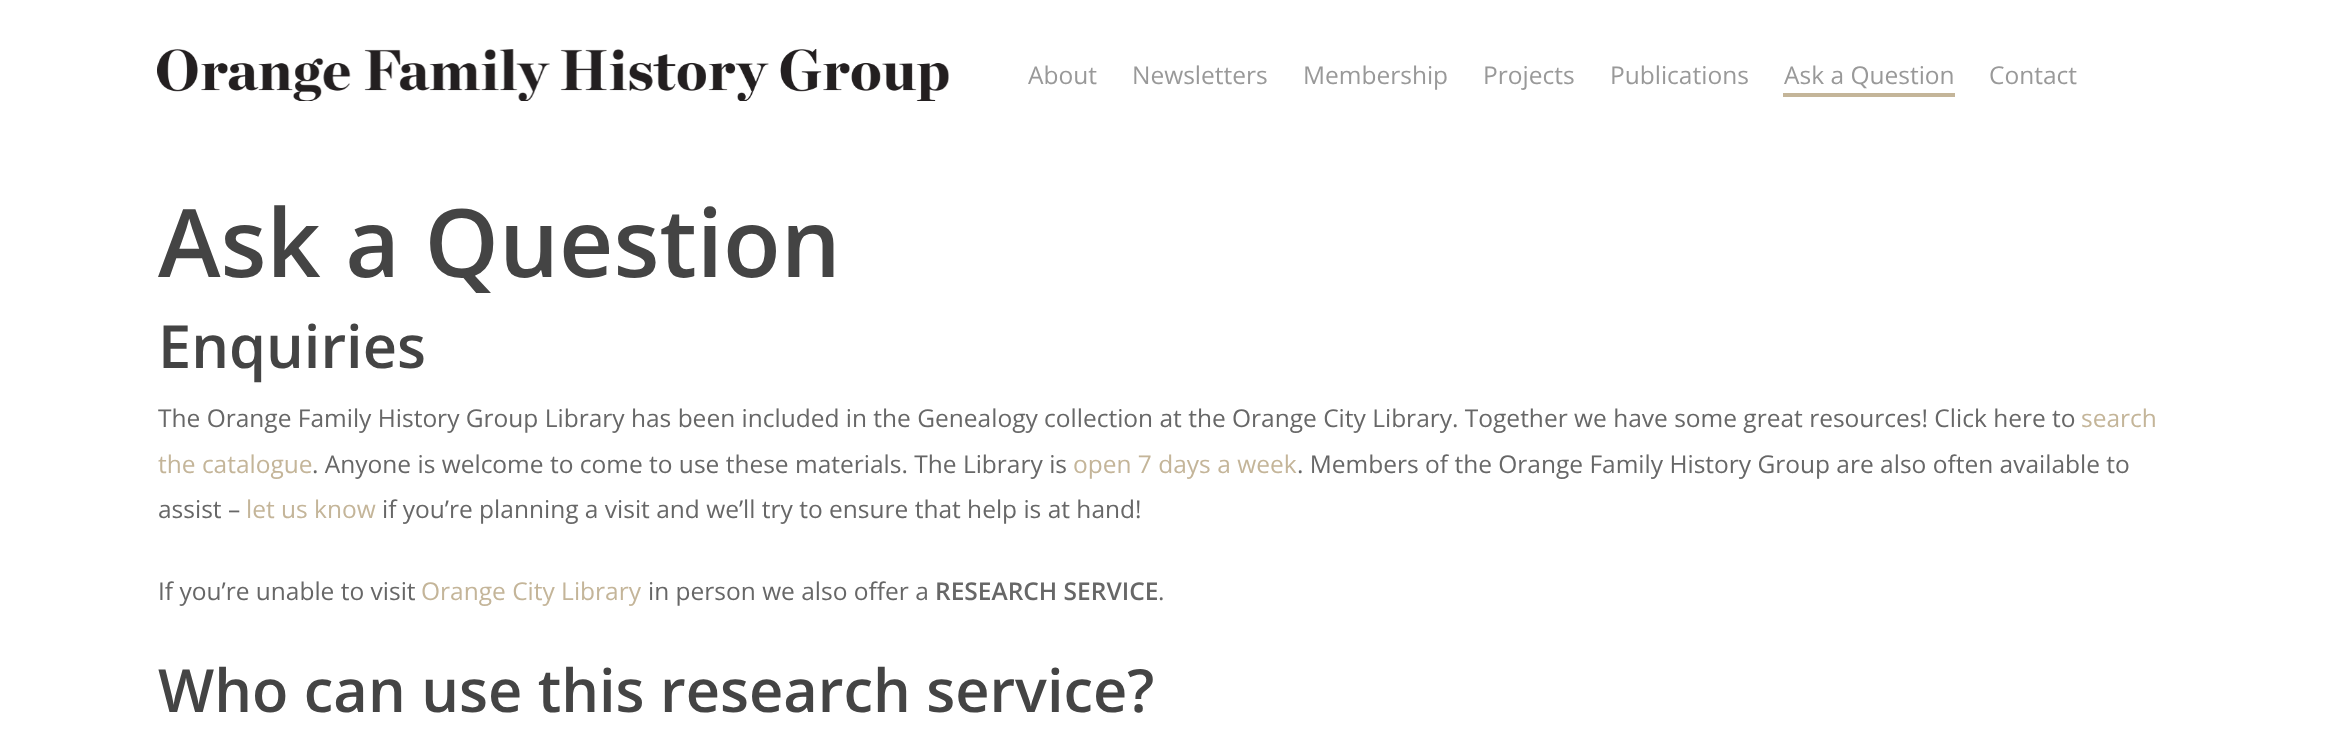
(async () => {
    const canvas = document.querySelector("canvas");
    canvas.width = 2346;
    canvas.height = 750;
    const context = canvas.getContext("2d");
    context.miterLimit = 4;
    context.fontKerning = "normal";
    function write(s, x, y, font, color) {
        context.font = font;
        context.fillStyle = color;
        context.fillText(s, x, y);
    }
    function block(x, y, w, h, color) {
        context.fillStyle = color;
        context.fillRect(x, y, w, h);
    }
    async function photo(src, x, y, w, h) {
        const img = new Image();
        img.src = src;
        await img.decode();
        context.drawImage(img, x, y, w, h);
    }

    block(0, 0, 2346, 750, "rgb(255, 255, 255)");
    await photo("media/1.png", 157, 49, 792, 52);
    write("About", 1028, 84, "24.5px Open Sans", "rgb(153, 153, 153)");
    write("Newsletters", 1132, 84, "24.5px Open Sans", "rgb(153, 153, 153)");
    write("Membership", 1303, 84, "24.5px Open Sans", "rgb(153, 153, 153)");
    write("Projects", 1483, 84, "24.5px Open Sans", "rgb(153, 153, 153)");
    write("Publications", 1610, 84, "24.5px Open Sans", "rgb(153, 153, 153)");
    write("Ask a Question", 1784, 84, "24.5px Open Sans", "rgb(153, 153, 153)");
    block(1783, 93, 172, 4, "rgb(196, 181, 153)");
    write("Contact", 1989, 84, "24.5px Open Sans", "rgb(153, 153, 153)");
    write("Ask a Question", 158, 277, "600 94.5px Open Sans", "rgb(68, 68, 68)");
    write("Enquiries", 158, 368, "600 59.5px Open Sans", "rgb(68, 68, 68)");
    write("The Orange Family History Group Library has been included in the Genealogy collection at the Orange City Library. Together we have some great resources! Click here to", 158, 427, "24.5px Open Sans", "rgb(103, 103, 103)");
    write("search", 2081, 427, "24.5px Open Sans", "rgb(196, 181, 153)");
    write("the catalogue", 158, 473, "24.5px Open Sans", "rgb(196, 181, 153)");
    write(". Anyone is welcome to come to use these materials. The Library is", 312, 473, "24.5px Open Sans", "rgb(103, 103, 103)");
    write("open 7 days a week", 1073, 473, "24.5px Open Sans", "rgb(196, 181, 153)");
    write(". Members of the Orange Family History Group are also often available to", 1297, 473, "24.5px Open Sans", "rgb(103, 103, 103)");
    write("assist –", 158, 518, "24.5px Open Sans", "rgb(103, 103, 103)");
    write("let us know", 246, 518, "24.5px Open Sans", "rgb(196, 181, 153)");
    write("if you’re planning a visit and we’ll try to ensure that help is at hand!", 382, 518, "24.5px Open Sans", "rgb(103, 103, 103)");
    write("If you’re unable to visit", 158, 600, "24.5px Open Sans", "rgb(103, 103, 103)");
    write("Orange City Library", 421, 600, "24.5px Open Sans", "rgb(196, 181, 153)");
    write("in person we also offer a", 648, 600, "24.5px Open Sans", "rgb(103, 103, 103)");
    write("RESEARCH SERVICE", 935, 600, "600 24.5px Open Sans", "rgb(103, 103, 103)");
    write(".", 1158, 600, "24.5px Open Sans", "rgb(103, 103, 103)");
    write("Who can use this research service?", 158, 712, "600 59.5px Open Sans", "rgb(68, 68, 68)");
})();
